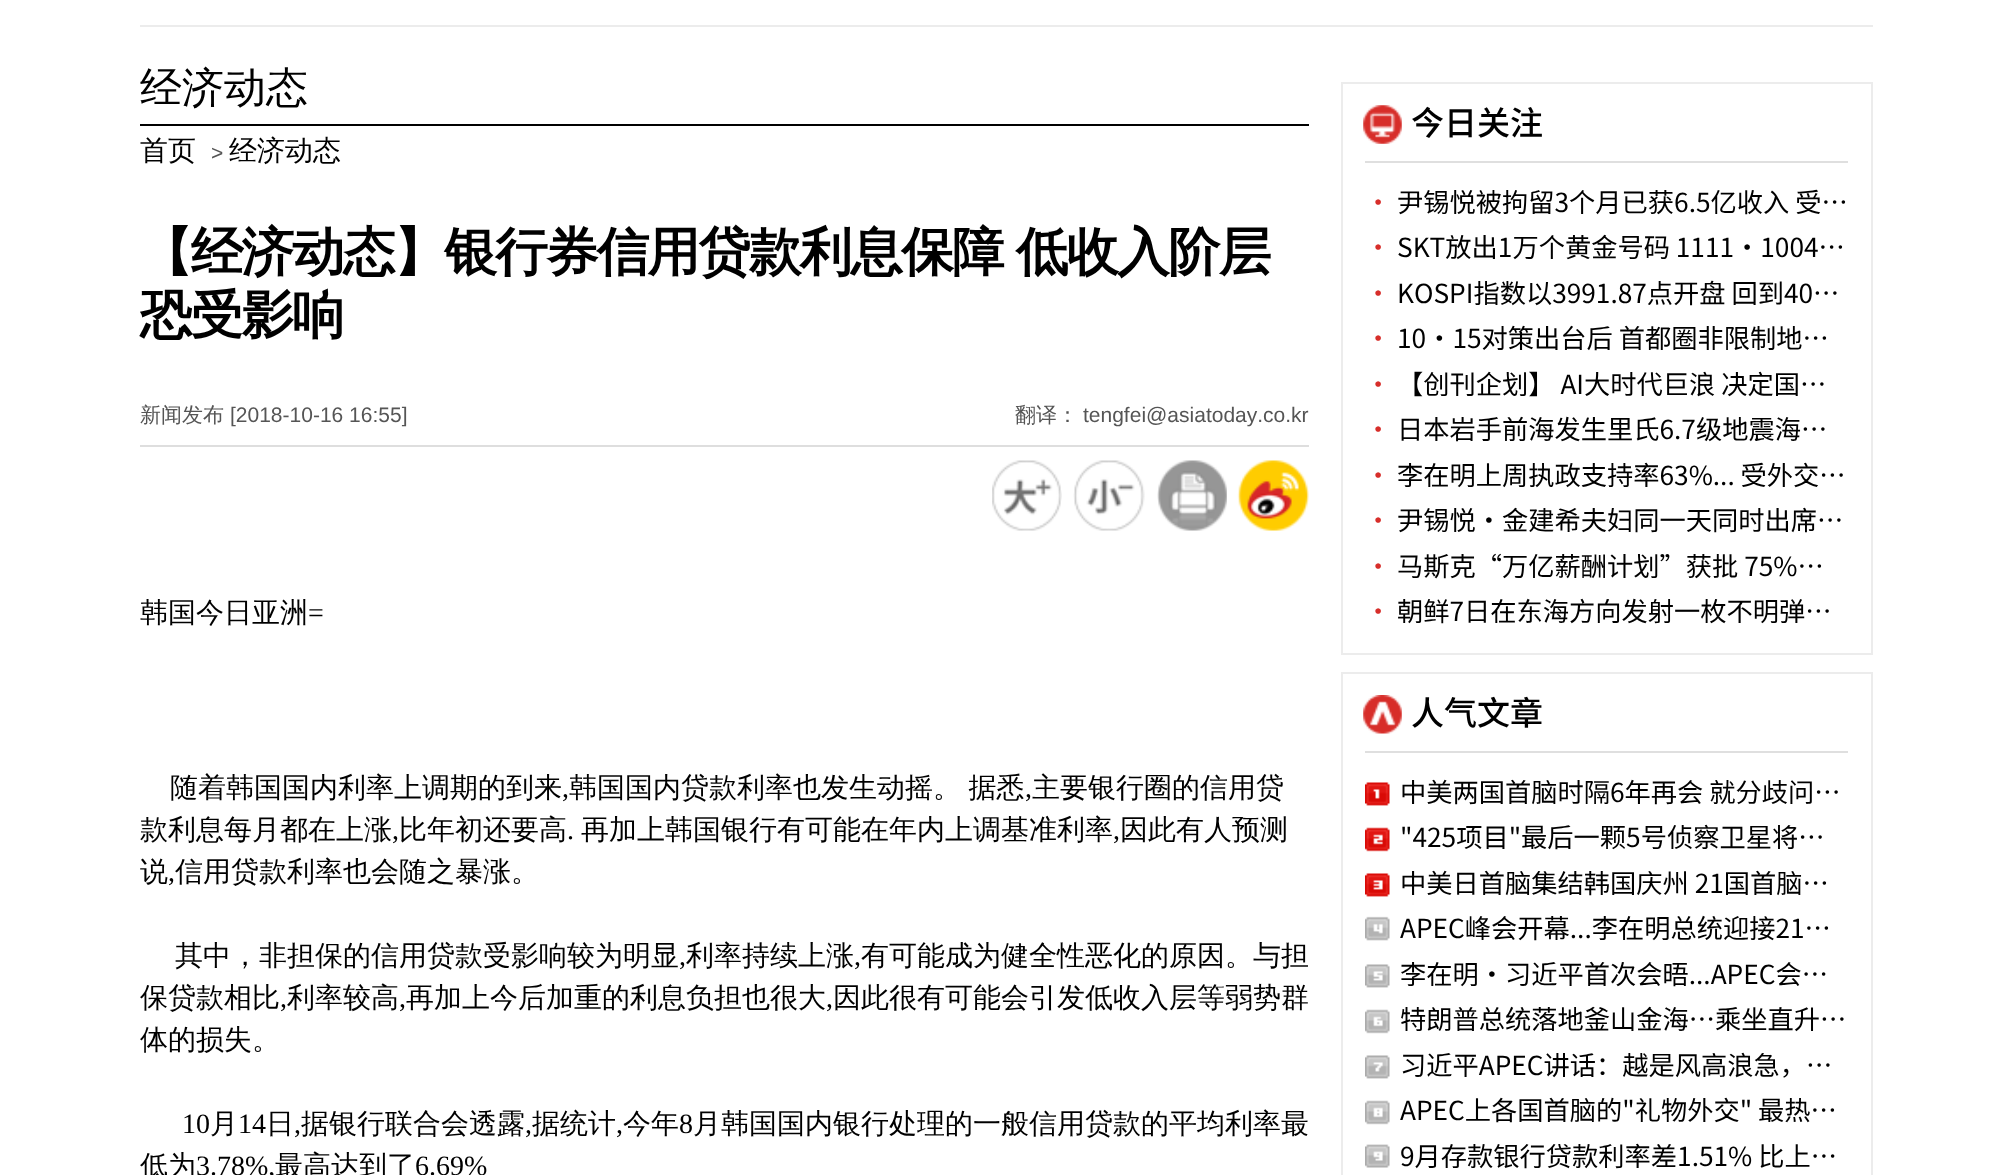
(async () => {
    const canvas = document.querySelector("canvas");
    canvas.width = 2012;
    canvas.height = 1175;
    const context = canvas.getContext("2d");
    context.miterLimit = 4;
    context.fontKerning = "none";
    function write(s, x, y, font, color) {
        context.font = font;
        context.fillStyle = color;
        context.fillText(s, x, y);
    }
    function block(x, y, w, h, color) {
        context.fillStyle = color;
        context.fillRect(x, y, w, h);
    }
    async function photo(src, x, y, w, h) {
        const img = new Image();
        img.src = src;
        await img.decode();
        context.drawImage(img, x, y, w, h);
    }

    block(0, 0, 2012, 1175, "rgb(255, 255, 255)");
    block(140, 25, 1733, 2, "rgb(236, 236, 236)");
    block(140, 124, 1169, 2, "rgb(0, 0, 0)");
    write("经济动态", 140, 102, "500 42px WenQuanYi Zen Hei", "rgb(0, 0, 0)");
    write("首页", 140, 160, "500 28px WenQuanYi Zen Hei", "rgb(0, 0, 0)");
    write(">", 211, 160, "21px Liberation Sans", "rgb(85, 85, 85)");
    write("经济动态", 229, 160, "500 28px WenQuanYi Zen Hei", "rgb(0, 0, 0)");
    context.letterSpacing = "-1.75px";
    context.wordSpacing = "-1px";
    write("【经济动态】银行券信用贷款利息保障 低收入阶层", 140, 270, "bold 52.5px WenQuanYi Zen Hei", "rgb(0, 0, 0)");
    context.wordSpacing = "0px";
    write("恐受影响", 140, 333, "bold 52.5px WenQuanYi Zen Hei", "rgb(0, 0, 0)");
    block(140, 445, 1169, 2, "rgb(222, 222, 222)");
    context.letterSpacing = "0px";
    write("新闻发布", 140, 422, "500 21px WenQuanYi Zen Hei", "rgb(85, 85, 85)");
    write("[2018-10-16 16:55]", 230, 422, "21px Liberation Sans", "rgb(85, 85, 85)");
    write("翻译：", 1015, 422, "500 21px WenQuanYi Zen Hei", "rgb(85, 85, 85)");
    write("tengfei@asiatoday.co.kr", 1083, 422, "21px Liberation Sans", "rgb(85, 85, 85)");
    await photo("media/1.png", 992, 460, 70, 71);
    await photo("media/2.png", 1073, 460, 72, 71);
    await photo("media/3.png", 1157, 460, 70, 71);
    await photo("media/4.png", 1237, 460, 72, 71);
    write("韩国今日亚洲", 140, 622, "500 28px WenQuanYi Zen Hei", "rgb(0, 0, 0)");
    write("=", 308, 622, "28px Liberation Serif", "rgb(0, 0, 0)");
    write("随着韩国国内利率上调期的到来", 170, 797, "500 28px WenQuanYi Zen Hei", "rgb(0, 0, 0)");
    write(",", 562, 797, "28px Liberation Serif", "rgb(0, 0, 0)");
    context.wordSpacing = "-1px";
    write("韩国国内贷款利率也发生动摇。 据悉", 569, 797, "500 28px WenQuanYi Zen Hei", "rgb(0, 0, 0)");
    context.wordSpacing = "0px";
    write(",", 1025, 797, "28px Liberation Serif", "rgb(0, 0, 0)");
    write("主要银行圈的信用贷", 1032, 797, "500 28px WenQuanYi Zen Hei", "rgb(0, 0, 0)");
    write("款利息每月都在上涨", 140, 839, "500 28px WenQuanYi Zen Hei", "rgb(0, 0, 0)");
    write(",", 392, 839, "28px Liberation Serif", "rgb(0, 0, 0)");
    write("比年初还要高", 399, 839, "500 28px WenQuanYi Zen Hei", "rgb(0, 0, 0)");
    write(".", 567, 839, "28px Liberation Serif", "rgb(0, 0, 0)");
    write("再加上韩国银行有可能在年内上调基准利率", 581, 839, "500 28px WenQuanYi Zen Hei", "rgb(0, 0, 0)");
    write(",", 1113, 839, "28px Liberation Serif", "rgb(0, 0, 0)");
    write("因此有人预测", 1120, 839, "500 28px WenQuanYi Zen Hei", "rgb(0, 0, 0)");
    write("说", 140, 881, "500 28px WenQuanYi Zen Hei", "rgb(0, 0, 0)");
    write(",", 168, 881, "28px Liberation Serif", "rgb(0, 0, 0)");
    write("信用贷款利率也会随之暴涨。", 175, 881, "500 28px WenQuanYi Zen Hei", "rgb(0, 0, 0)");
    write("其中，非担保的信用贷款受影响较为明显", 175, 965, "500 28px WenQuanYi Zen Hei", "rgb(0, 0, 0)");
    write(",", 679, 965, "28px Liberation Serif", "rgb(0, 0, 0)");
    write("利率持续上涨", 686, 965, "500 28px WenQuanYi Zen Hei", "rgb(0, 0, 0)");
    write(",", 854, 965, "28px Liberation Serif", "rgb(0, 0, 0)");
    write("有可能成为健全性恶化的原因。与担", 861, 965, "500 28px WenQuanYi Zen Hei", "rgb(0, 0, 0)");
    write("保贷款相比", 140, 1007, "500 28px WenQuanYi Zen Hei", "rgb(0, 0, 0)");
    write(",", 280, 1007, "28px Liberation Serif", "rgb(0, 0, 0)");
    write("利率较高", 287, 1007, "500 28px WenQuanYi Zen Hei", "rgb(0, 0, 0)");
    write(",", 399, 1007, "28px Liberation Serif", "rgb(0, 0, 0)");
    write("再加上今后加重的利息负担也很大", 406, 1007, "500 28px WenQuanYi Zen Hei", "rgb(0, 0, 0)");
    write(",", 826, 1007, "28px Liberation Serif", "rgb(0, 0, 0)");
    write("因此很有可能会引发低收入层等弱势群", 833, 1007, "500 28px WenQuanYi Zen Hei", "rgb(0, 0, 0)");
    write("体的损失。", 140, 1049, "500 28px WenQuanYi Zen Hei", "rgb(0, 0, 0)");
    write("10", 182, 1133, "28px Liberation Serif", "rgb(0, 0, 0)");
    write("月", 210, 1133, "500 28px WenQuanYi Zen Hei", "rgb(0, 0, 0)");
    write("14", 238, 1133, "28px Liberation Serif", "rgb(0, 0, 0)");
    write("日", 266, 1133, "500 28px WenQuanYi Zen Hei", "rgb(0, 0, 0)");
    write(",", 294, 1133, "28px Liberation Serif", "rgb(0, 0, 0)");
    write("据银行联合会透露", 301, 1133, "500 28px WenQuanYi Zen Hei", "rgb(0, 0, 0)");
    write(",", 525, 1133, "28px Liberation Serif", "rgb(0, 0, 0)");
    write("据统计", 532, 1133, "500 28px WenQuanYi Zen Hei", "rgb(0, 0, 0)");
    write(",", 616, 1133, "28px Liberation Serif", "rgb(0, 0, 0)");
    write("今年", 623, 1133, "500 28px WenQuanYi Zen Hei", "rgb(0, 0, 0)");
    write("8", 679, 1133, "28px Liberation Serif", "rgb(0, 0, 0)");
    write("月韩国国内银行处理的一般信用贷款的平均利率最", 693, 1133, "500 28px WenQuanYi Zen Hei", "rgb(0, 0, 0)");
    write("低为", 140, 1175, "500 28px WenQuanYi Zen Hei", "rgb(0, 0, 0)");
    write("3.78%,", 196, 1175, "28px Liberation Serif", "rgb(0, 0, 0)");
    write("最高达到了", 275, 1175, "500 28px WenQuanYi Zen Hei", "rgb(0, 0, 0)");
    write("6.69%", 415, 1175, "28px Liberation Serif", "rgb(0, 0, 0)");
    context.strokeStyle = "rgb(236, 236, 236)";
    context.lineWidth = 2;
    context.strokeRect(1342, 83, 530, 571);
    await photo("media/5.png", 1363, 105, 39, 39);
    write("今日关注", 1411, 135, "500 33px Noto Sans SC", "rgb(0, 0, 0)");
    block(1365, 161, 483, 2, "rgb(223, 223, 223)");
    write("•", 1365, 212, "26.25px Noto Sans SC", "rgb(215, 46, 42)");
    write("尹锡悦被拘留3个月已获6.5亿收入 受…", 1397, 212, "26.25px Noto Sans SC", "rgb(0, 0, 0)");
    write("•", 1365, 257, "26.25px Noto Sans SC", "rgb(215, 46, 42)");
    write("SKT放出1万个黄金号码 1111·1004…", 1397, 257, "26.25px Noto Sans SC", "rgb(0, 0, 0)");
    write("•", 1365, 303, "26.25px Noto Sans SC", "rgb(215, 46, 42)");
    write("KOSPI指数以3991.87点开盘 回到40…", 1397, 303, "26.25px Noto Sans SC", "rgb(0, 0, 0)");
    write("•", 1365, 348, "26.25px Noto Sans SC", "rgb(215, 46, 42)");
    write("10·15对策出台后 首都圈非限制地…", 1397, 348, "26.25px Noto Sans SC", "rgb(0, 0, 0)");
    write("•", 1365, 394, "26.25px Noto Sans SC", "rgb(215, 46, 42)");
    write("【创刊企划】 AI大时代巨浪 决定国…", 1397, 394, "26.25px Noto Sans SC", "rgb(0, 0, 0)");
    write("•", 1365, 439, "26.25px Noto Sans SC", "rgb(215, 46, 42)");
    write("日本岩手前海发生里氏6.7级地震海…", 1397, 439, "26.25px Noto Sans SC", "rgb(0, 0, 0)");
    write("•", 1365, 485, "26.25px Noto Sans SC", "rgb(215, 46, 42)");
    write("李在明上周执政支持率63%... 受外交…", 1397, 485, "26.25px Noto Sans SC", "rgb(0, 0, 0)");
    write("•", 1365, 530, "26.25px Noto Sans SC", "rgb(215, 46, 42)");
    write("尹锡悦·金建希夫妇同一天同时出席…", 1397, 530, "26.25px Noto Sans SC", "rgb(0, 0, 0)");
    write("•", 1365, 576, "26.25px Noto Sans SC", "rgb(215, 46, 42)");
    write("马斯克“万亿薪酬计划”获批 75%…", 1397, 576, "26.25px Noto Sans SC", "rgb(0, 0, 0)");
    write("•", 1365, 621, "26.25px Noto Sans SC", "rgb(215, 46, 42)");
    write("朝鲜7日在东海方向发射一枚不明弹…", 1397, 621, "26.25px Noto Sans SC", "rgb(0, 0, 0)");
    context.strokeRect(1342, 673, 530, 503);
    await photo("media/6.png", 1363, 695, 39, 39);
    write("人气文章", 1411, 725, "500 33px Noto Sans SC", "rgb(0, 0, 0)");
    block(1365, 751, 483, 2, "rgb(223, 223, 223)");
    await photo("media/7.png", 1365, 782, 25, 24);
    write("中美两国首脑时隔6年再会 就分歧问…", 1400, 802, "26.25px Noto Sans SC", "rgb(0, 0, 0)");
    await photo("media/8.png", 1365, 827, 25, 25);
    write("\"425项目\"最后一颗5号侦察卫星将…", 1400, 847, "26.25px Noto Sans SC", "rgb(0, 0, 0)");
    await photo("media/9.png", 1365, 873, 25, 24);
    write("中美日首脑集结韩国庆州 21国首脑…", 1400, 893, "26.25px Noto Sans SC", "rgb(0, 0, 0)");
    await photo("media/10.png", 1365, 916, 25, 25);
    write("APEC峰会开幕...李在明总统迎接21…", 1400, 938, "26.25px Noto Sans SC", "rgb(0, 0, 0)");
    await photo("media/11.png", 1365, 964, 25, 24);
    write("李在明·习近平首次会晤...APEC会…", 1400, 984, "26.25px Noto Sans SC", "rgb(0, 0, 0)");
    await photo("media/12.png", 1365, 1009, 25, 25);
    write("特朗普总统落地釜山金海…乘坐直升…", 1400, 1029, "26.25px Noto Sans SC", "rgb(0, 0, 0)");
    await photo("media/13.png", 1365, 1055, 25, 24);
    write("习近平APEC讲话：越是风高浪急，…", 1400, 1075, "26.25px Noto Sans SC", "rgb(0, 0, 0)");
    await photo("media/14.png", 1365, 1100, 25, 25);
    write("APEC上各国首脑的\"礼物外交\" 最热…", 1400, 1120, "26.25px Noto Sans SC", "rgb(0, 0, 0)");
    await photo("media/15.png", 1365, 1144, 25, 24);
    write("9月存款银行贷款利率差1.51% 比上…", 1400, 1166, "26.25px Noto Sans SC", "rgb(0, 0, 0)");
})();
